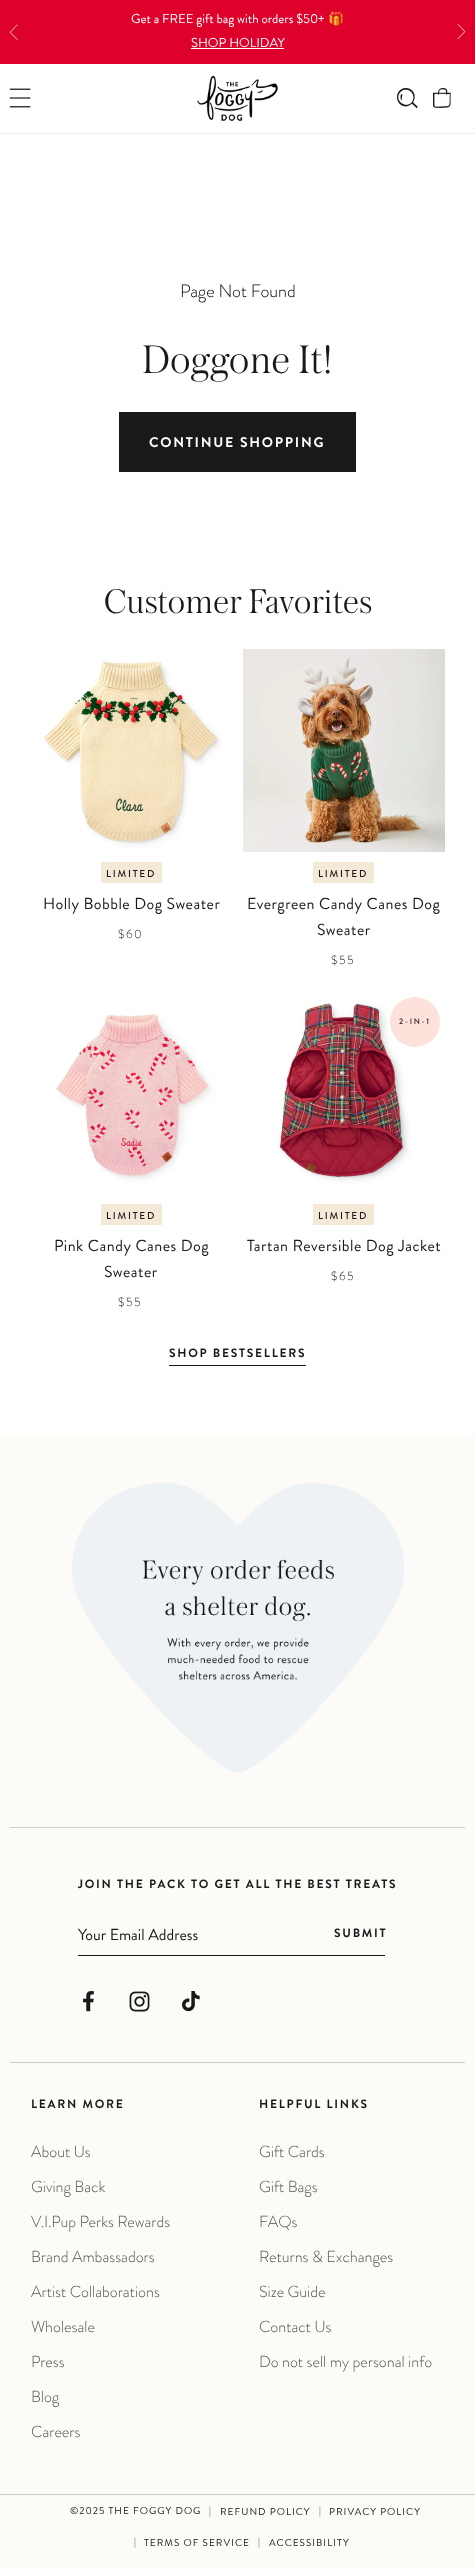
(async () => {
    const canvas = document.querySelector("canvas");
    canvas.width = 475;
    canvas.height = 2569;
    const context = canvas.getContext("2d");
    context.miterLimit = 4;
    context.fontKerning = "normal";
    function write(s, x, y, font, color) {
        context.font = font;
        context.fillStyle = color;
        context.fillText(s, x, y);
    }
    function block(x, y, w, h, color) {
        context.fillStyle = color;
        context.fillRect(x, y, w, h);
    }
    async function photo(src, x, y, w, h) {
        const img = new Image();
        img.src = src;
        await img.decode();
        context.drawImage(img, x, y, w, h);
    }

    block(0, 0, 475, 2569, "rgb(255, 255, 255)");
    block(0, 0, 475, 64, "rgb(222, 1, 43)");
    write("Get a FREE gift bag with orders $50+", 131, 23, "13px 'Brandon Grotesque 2'", "rgb(255, 255, 255)");
    write("🎁", 328, 23, "13px Noto Color Emoji", "rgb(255, 255, 255)");
    write("SHOP HOLIDAY", 191, 47, "13px 'Brandon Grotesque 2'", "rgb(255, 255, 255)");
    block(191, 48, 93, 1, "rgb(255, 255, 255)");
    await photo("media/1.png", 9, 24, 9, 16);
    await photo("media/2.png", 457, 24, 9, 16);
    block(0, 133, 475, 1, "rgb(237, 237, 237)");
    await photo("media/3.png", 9, 88, 22, 20);
    await photo("media/4.png", 197, 75, 81, 47);
    await photo("media/5.png", 397, 88, 21, 20);
    await photo("media/6.png", 433, 88, 18, 20);
    write("Page Not Found", 180, 297, "300 18px Brandon Grotesque", "rgb(0, 0, 0)");
    context.letterSpacing = "0.5px";
    write("Doggone It!", 142, 373, "300 42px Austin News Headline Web", "rgb(26, 25, 25)");
    block(119, 412, 237, 60, "rgb(26, 25, 25)");
    context.letterSpacing = "1.75px";
    write("CONTINUE SHOPPING", 149, 447, "14px Brandon Grotesque", "rgb(255, 255, 255)");
    context.letterSpacing = "0.5px";
    write("Customer Favorites", 104, 613, "300 36px Austin News Headline Web", "rgb(26, 25, 25)");
    await photo("media/7.png", 30, 649, 203, 203);
    block(101, 862, 61, 21, "rgb(244, 232, 215)");
    context.letterSpacing = "1.75px";
    write("LIMITED", 106, 877, "500 10px Brandon Grotesque", "rgb(26, 25, 25)");
    context.letterSpacing = "0.5px";
    write("Holly Bobble Dog Sweater", 43, 909, "16px 'Brandon Grotesque 2'", "rgb(26, 25, 25)");
    context.letterSpacing = "1.5px";
    write("$60", 118, 938, "300 12px Brandon Grotesque", "rgb(26, 25, 25)");
    await photo("media/8.png", 243, 649, 202, 203);
    block(313, 862, 61, 21, "rgb(244, 232, 215)");
    context.letterSpacing = "1.75px";
    write("LIMITED", 318, 877, "500 10px Brandon Grotesque", "rgb(26, 25, 25)");
    context.letterSpacing = "0.5px";
    write("Evergreen Candy Canes Dog", 247, 909, "16px 'Brandon Grotesque 2'", "rgb(26, 25, 25)");
    write("Sweater", 317, 935, "16px 'Brandon Grotesque 2'", "rgb(26, 25, 25)");
    context.letterSpacing = "1.5px";
    write("$55", 331, 964, "300 12px Brandon Grotesque", "rgb(26, 25, 25)");
    await photo("media/9.png", 30, 992, 203, 202);
    block(101, 1204, 61, 21, "rgb(244, 232, 215)");
    context.letterSpacing = "1.75px";
    write("LIMITED", 106, 1219, "500 10px Brandon Grotesque", "rgb(26, 25, 25)");
    context.letterSpacing = "0.5px";
    write("Pink Candy Canes Dog", 54, 1251, "16px 'Brandon Grotesque 2'", "rgb(26, 25, 25)");
    write("Sweater", 104, 1277, "16px 'Brandon Grotesque 2'", "rgb(26, 25, 25)");
    context.letterSpacing = "1.5px";
    write("$55", 118, 1306, "300 12px Brandon Grotesque", "rgb(26, 25, 25)");
    await photo("media/10.png", 243, 992, 202, 202);
    context.fillStyle = "rgb(253, 226, 219)";
    context.beginPath();
    context.arc(415, 1022, 25, 0, Math.PI * 2);
    context.fill();
    context.letterSpacing = "1.75px";
    write("2-IN-1", 399, 1024, "500 8px Brandon Grotesque", "rgb(26, 25, 25)");
    block(313, 1204, 61, 21, "rgb(244, 232, 215)");
    write("LIMITED", 318, 1219, "500 10px Brandon Grotesque", "rgb(26, 25, 25)");
    context.letterSpacing = "0.5px";
    write("Tartan Reversible Dog Jacket", 247, 1251, "16px 'Brandon Grotesque 2'", "rgb(26, 25, 25)");
    context.letterSpacing = "1.5px";
    write("$65", 331, 1280, "300 12px Brandon Grotesque", "rgb(26, 25, 25)");
    context.letterSpacing = "1.75px";
    write("SHOP BESTSELLERS", 169, 1357, "12px Brandon Grotesque", "rgb(26, 25, 25)");
    block(169, 1365, 137, 1, "rgb(26, 25, 25)");
    block(0, 1435, 475, 1134, "rgb(253, 251, 248)");
    block(10, 1827, 455, 1, "rgb(204, 204, 204)");
    await photo("media/11.png", 72, 1482, 332, 291);
    block(10, 2062, 455, 1, "rgb(204, 204, 204)");
    write("JOIN THE PACK TO GET ALL THE BEST TREATS", 78, 1888, "12px Brandon Grotesque", "rgb(26, 25, 25)");
    block(78, 1955, 307, 1, "rgb(26, 25, 25)");
    context.letterSpacing = "0px";
    write("Your Email Address", 78, 1940, "16px 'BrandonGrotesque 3'", "rgb(26, 25, 25)");
    context.letterSpacing = "1.75px";
    write("SUBMIT", 334, 1937, "12px Brandon Grotesque", "rgb(26, 25, 25)");
    await photo("media/12.png", 83, 1991, 11, 21);
    await photo("media/13.png", 129, 1991, 21, 21);
    await photo("media/14.png", 182, 1991, 18, 21);
    write("LEARN MORE", 31, 2108, "12px Brandon Grotesque", "rgb(26, 25, 25)");
    context.letterSpacing = "0px";
    write("About Us", 31, 2157, "300 16px Brandon Grotesque", "rgb(83, 82, 81)");
    write("Giving Back", 31, 2192, "300 16px Brandon Grotesque", "rgb(83, 82, 81)");
    write("V.I.Pup Perks Rewards", 31, 2227, "300 16px Brandon Grotesque", "rgb(83, 82, 81)");
    write("Brand Ambassadors", 31, 2262, "300 16px Brandon Grotesque", "rgb(83, 82, 81)");
    write("Artist Collaborations", 31, 2297, "300 16px Brandon Grotesque", "rgb(83, 82, 81)");
    write("Wholesale", 31, 2332, "300 16px Brandon Grotesque", "rgb(83, 82, 81)");
    write("Press", 31, 2367, "300 16px Brandon Grotesque", "rgb(83, 82, 81)");
    write("Blog", 31, 2402, "300 16px Brandon Grotesque", "rgb(83, 82, 81)");
    write("Careers", 31, 2437, "300 16px Brandon Grotesque", "rgb(83, 82, 81)");
    context.letterSpacing = "1.75px";
    write("HELPFUL LINKS", 259, 2108, "12px Brandon Grotesque", "rgb(26, 25, 25)");
    context.letterSpacing = "0px";
    write("Gift Cards", 259, 2157, "300 16px Brandon Grotesque", "rgb(83, 82, 81)");
    write("Gift Bags", 259, 2192, "300 16px Brandon Grotesque", "rgb(83, 82, 81)");
    write("FAQs", 259, 2227, "300 16px Brandon Grotesque", "rgb(83, 82, 81)");
    write("Returns & Exchanges", 259, 2262, "300 16px Brandon Grotesque", "rgb(83, 82, 81)");
    write("Size Guide", 259, 2297, "300 16px Brandon Grotesque", "rgb(83, 82, 81)");
    write("Contact Us", 259, 2332, "300 16px Brandon Grotesque", "rgb(83, 82, 81)");
    write("Do not sell my personal info", 259, 2367, "300 16px Brandon Grotesque", "rgb(83, 82, 81)");
    block(0, 2494, 475, 1, "rgb(204, 204, 204)");
    context.letterSpacing = "1px";
    write("©2025 THE FOGGY DOG", 70, 2514, "10px 'Brandon Grotesque 2'", "rgb(26, 25, 25)");
    write("|", 209, 2514, "300 10px Brandon Grotesque", "rgb(26, 25, 25)");
    write("REFUND POLICY", 220, 2515, "10px 'Brandon Grotesque 2'", "rgb(26, 25, 25)");
    write("|", 319, 2514, "300 10px Brandon Grotesque", "rgb(26, 25, 25)");
    write("PRIVACY POLICY", 329, 2515, "10px 'Brandon Grotesque 2'", "rgb(26, 25, 25)");
    write("|", 134, 2545, "300 10px Brandon Grotesque", "rgb(26, 25, 25)");
    write("TERMS OF SERVICE", 144, 2546, "10px 'Brandon Grotesque 2'", "rgb(26, 25, 25)");
    write("|", 258, 2545, "300 10px Brandon Grotesque", "rgb(26, 25, 25)");
    write("ACCESSIBILITY", 269, 2546, "10px 'Brandon Grotesque 2'", "rgb(26, 25, 25)");
})();
